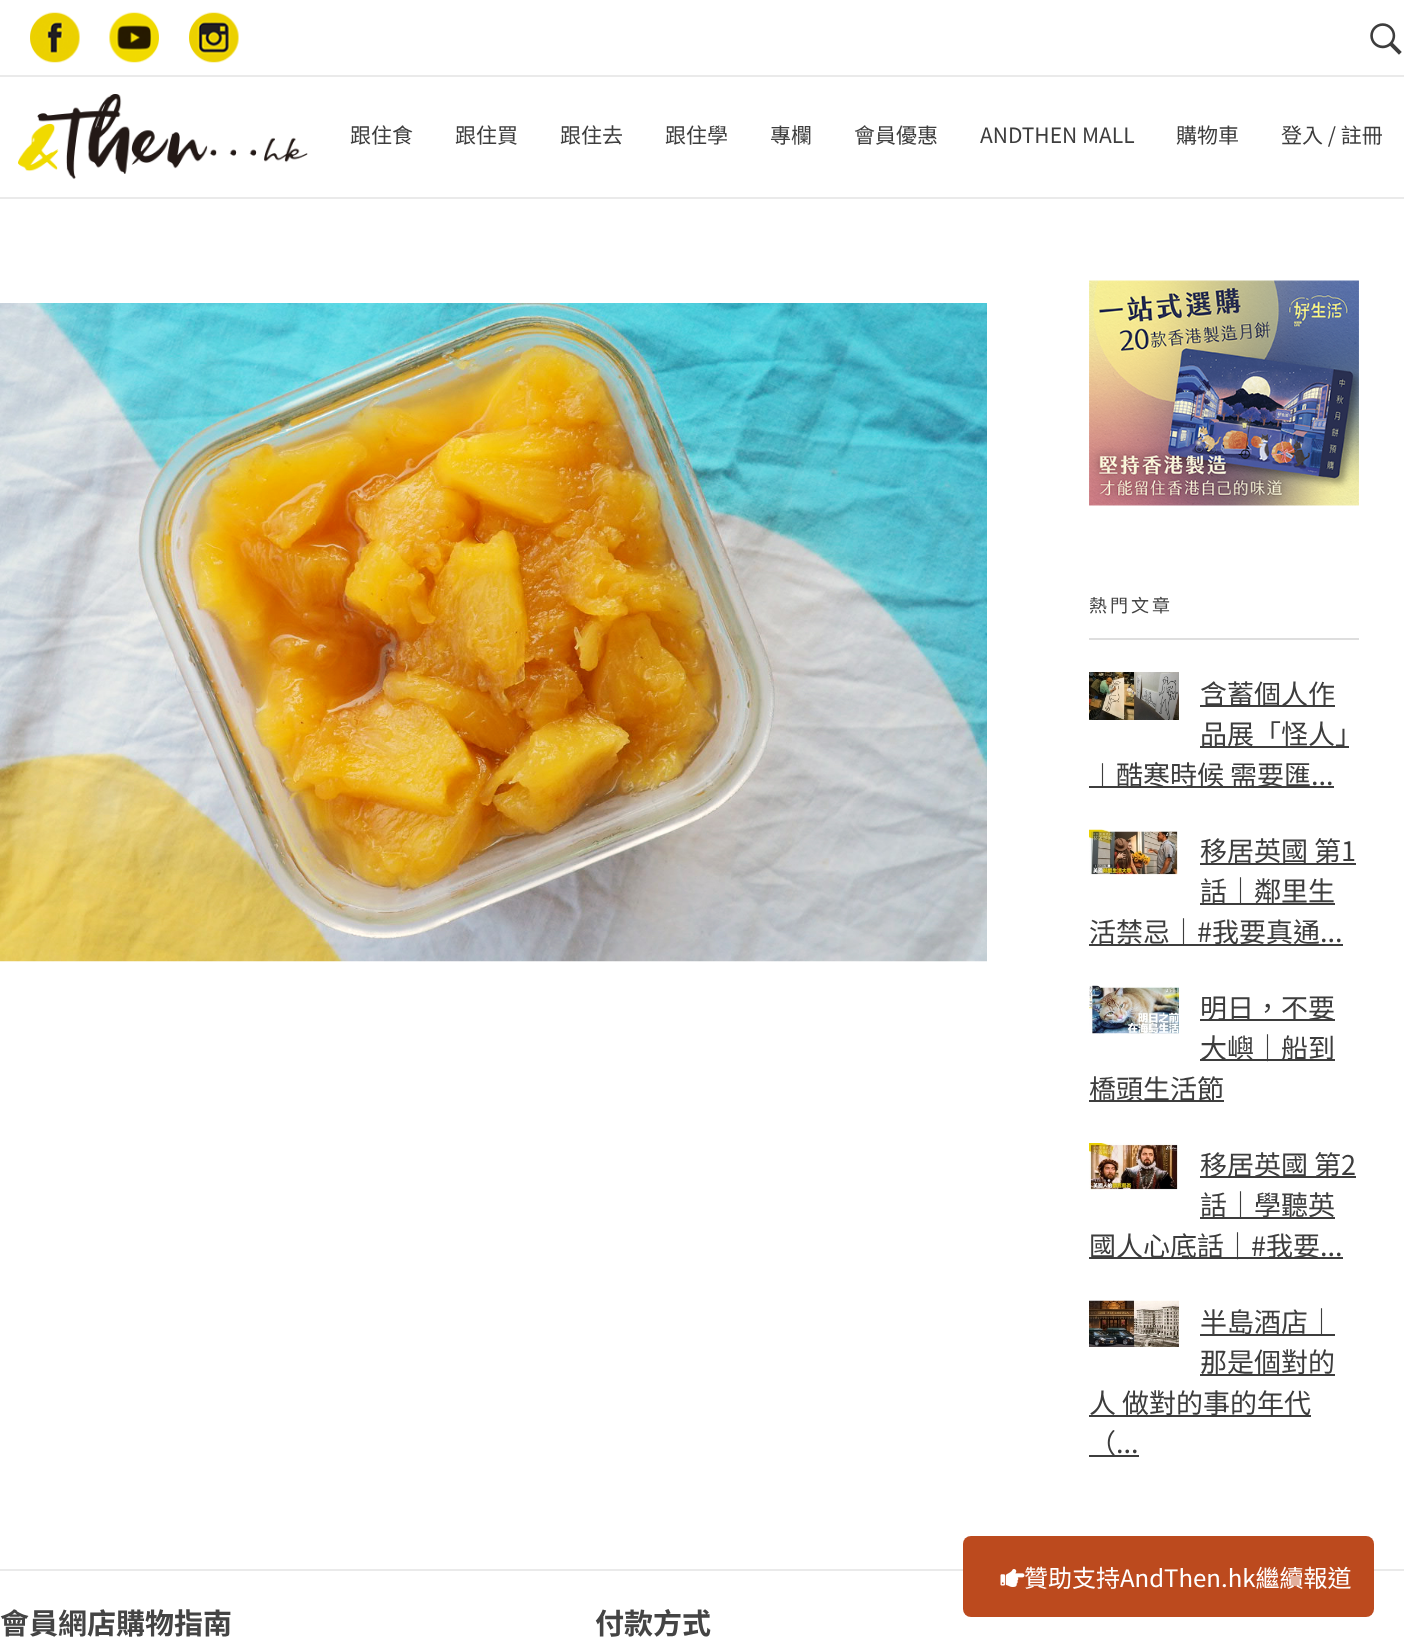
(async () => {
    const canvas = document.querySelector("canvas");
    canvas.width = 1404;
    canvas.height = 1646;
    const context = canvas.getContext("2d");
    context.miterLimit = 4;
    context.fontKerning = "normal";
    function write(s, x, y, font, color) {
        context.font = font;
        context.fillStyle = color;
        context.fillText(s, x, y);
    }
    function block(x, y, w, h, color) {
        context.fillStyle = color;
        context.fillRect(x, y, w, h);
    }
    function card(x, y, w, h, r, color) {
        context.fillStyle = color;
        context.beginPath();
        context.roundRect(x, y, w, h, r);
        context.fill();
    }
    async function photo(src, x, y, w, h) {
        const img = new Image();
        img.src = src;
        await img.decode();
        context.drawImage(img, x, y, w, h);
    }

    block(0, 0, 1404, 1646, "rgb(255, 255, 255)");
    block(0, 75, 1404, 2, "rgb(234, 234, 234)");
    await photo("media/1.png", 30, 12, 50, 51);
    await photo("media/2.png", 109, 12, 50, 51);
    await photo("media/3.png", 189, 12, 50, 51);
    await photo("media/4.png", 1370, 23, 32, 32);
    block(0, 197, 1404, 2, "rgb(234, 234, 234)");
    await photo("media/5.png", 18, 94, 290, 85);
    write("跟住食", 350, 143, "21px Noto Sans HK", "rgb(61, 61, 61)");
    write("跟住買", 455, 143, "21px Noto Sans HK", "rgb(61, 61, 61)");
    write("跟住去", 560, 143, "21px Noto Sans HK", "rgb(61, 61, 61)");
    write("跟住學", 665, 143, "21px Noto Sans HK", "rgb(61, 61, 61)");
    write("專欄", 770, 143, "21px Noto Sans HK", "rgb(61, 61, 61)");
    write("會員優惠", 854, 143, "21px Noto Sans HK", "rgb(61, 61, 61)");
    write("ANDTHEN MALL", 980, 143, "21px Noto Sans HK", "rgb(61, 61, 61)");
    write("購物車", 1176, 143, "21px Noto Sans HK", "rgb(61, 61, 61)");
    write("登入 / 註冊", 1281, 143, "21px Noto Sans HK", "rgb(61, 61, 61)");
    await photo("media/6.png", 0, 303, 987, 659);
    await photo("media/7.png", 1089, 280, 270, 226);
    block(1089, 638, 270, 2, "rgb(222, 222, 222)");
    context.letterSpacing = "3px";
    write("熱門文章", 1089, 612, "18px Noto Sans HK", "rgb(68, 68, 68)");
    await photo("media/8.png", 1089, 672, 90, 48);
    block(1200, 705, 135, 2, "rgb(61, 61, 61)");
    context.letterSpacing = "0px";
    write("含蓄個人作", 1200, 704, "27px Noto Sans HK", "rgb(61, 61, 61)");
    block(1200, 746, 149, 2, "rgb(61, 61, 61)");
    write("品展「怪人」", 1200, 744, "27px Noto Sans HK", "rgb(61, 61, 61)");
    block(1089, 786, 245, 2, "rgb(61, 61, 61)");
    write("︱酷寒時候 需要匯...", 1089, 785, "27px Noto Sans HK", "rgb(61, 61, 61)");
    await photo("media/9.png", 1089, 829, 89, 46);
    block(1200, 863, 156, 2, "rgb(61, 61, 61)");
    write("移居英國 第1", 1200, 861, "27px Noto Sans HK", "rgb(61, 61, 61)");
    block(1200, 903, 135, 2, "rgb(61, 61, 61)");
    write("話｜鄰里生", 1200, 901, "27px Noto Sans HK", "rgb(61, 61, 61)");
    block(1089, 944, 254, 2, "rgb(61, 61, 61)");
    write("活禁忌｜#我要真通...", 1089, 942, "27px Noto Sans HK", "rgb(61, 61, 61)");
    await photo("media/10.png", 1089, 985, 90, 49);
    block(1200, 1019, 135, 2, "rgb(61, 61, 61)");
    write("明日，不要", 1200, 1018, "27px Noto Sans HK", "rgb(61, 61, 61)");
    block(1200, 1059, 135, 2, "rgb(61, 61, 61)");
    write("大嶼｜船到", 1200, 1058, "27px Noto Sans HK", "rgb(61, 61, 61)");
    block(1089, 1100, 135, 2, "rgb(61, 61, 61)");
    write("橋頭生活節", 1089, 1099, "27px Noto Sans HK", "rgb(61, 61, 61)");
    await photo("media/11.png", 1089, 1143, 89, 47);
    block(1200, 1176, 156, 2, "rgb(61, 61, 61)");
    write("移居英國 第2", 1200, 1175, "27px Noto Sans HK", "rgb(61, 61, 61)");
    block(1200, 1217, 135, 2, "rgb(61, 61, 61)");
    write("話｜學聽英", 1200, 1215, "27px Noto Sans HK", "rgb(61, 61, 61)");
    block(1089, 1257, 254, 2, "rgb(61, 61, 61)");
    write("國人心底話｜#我要...", 1089, 1256, "27px Noto Sans HK", "rgb(61, 61, 61)");
    await photo("media/12.png", 1089, 1300, 90, 47);
    block(1200, 1334, 135, 2, "rgb(61, 61, 61)");
    write("半島酒店｜", 1200, 1332, "27px Noto Sans HK", "rgb(61, 61, 61)");
    block(1200, 1374, 135, 2, "rgb(61, 61, 61)");
    write("那是個對的", 1200, 1372, "27px Noto Sans HK", "rgb(61, 61, 61)");
    block(1089, 1415, 222, 2, "rgb(61, 61, 61)");
    write("人 做對的事的年代", 1089, 1413, "27px Noto Sans HK", "rgb(61, 61, 61)");
    block(1089, 1455, 50, 2, "rgb(61, 61, 61)");
    write("（...", 1089, 1453, "27px Noto Sans HK", "rgb(61, 61, 61)");
    block(0, 1569, 1404, 2, "rgb(234, 234, 234)");
    write("會員網店購物指南", 0, 1634, "bold 29px Noto Sans HK", "rgb(68, 68, 68)");
    write("付款方式", 595, 1634, "bold 29px Noto Sans HK", "rgb(68, 68, 68)");
    card(963, 1536, 411, 81, 8, "rgb(188, 74, 30)");
    await photo("media/13.png", 1000, 1569, 25, 18);
    write("贊助支持AndThen.hk繼續報道", 1024, 1587, "24px Noto Sans HK", "rgb(255, 255, 255)");
})();
